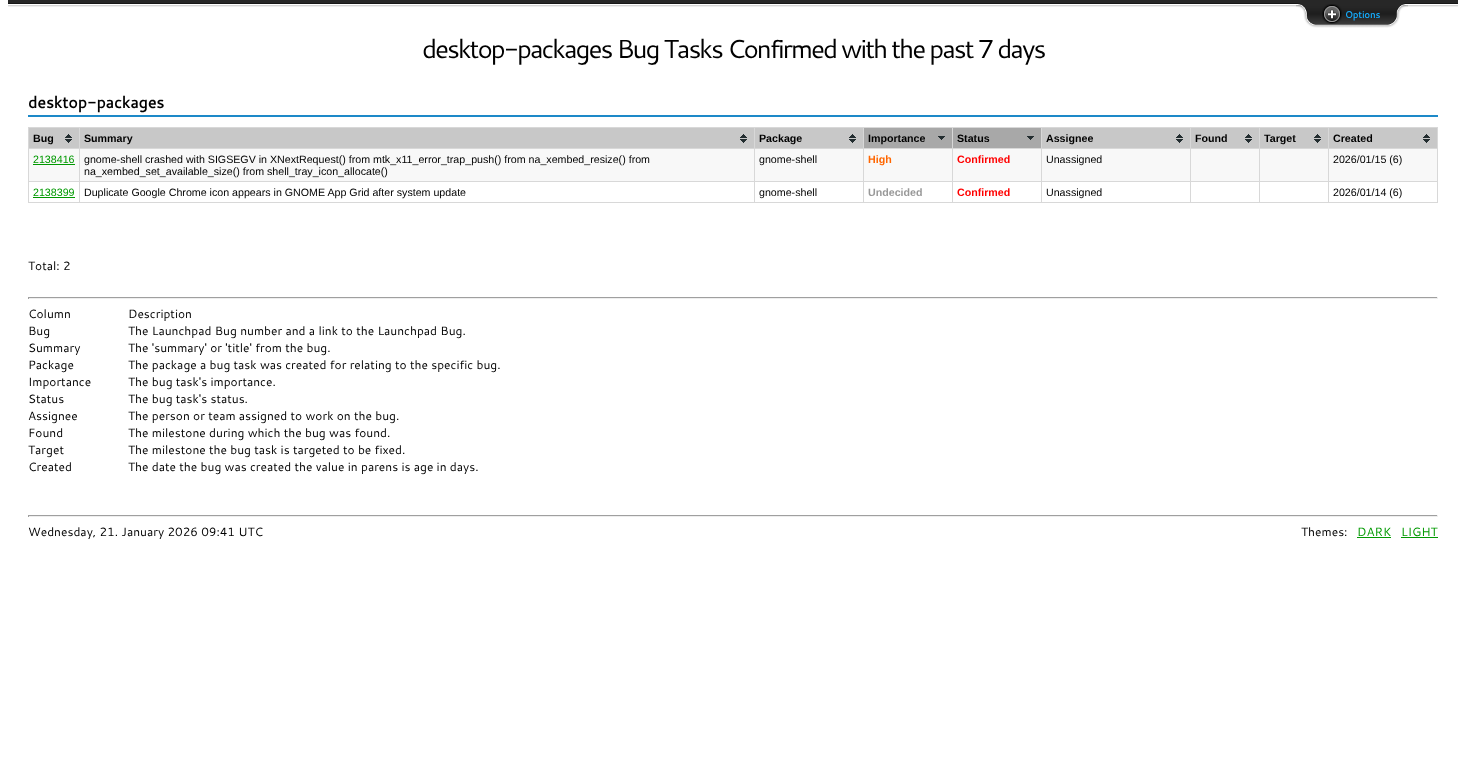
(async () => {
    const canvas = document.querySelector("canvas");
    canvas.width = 1466;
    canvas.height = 759;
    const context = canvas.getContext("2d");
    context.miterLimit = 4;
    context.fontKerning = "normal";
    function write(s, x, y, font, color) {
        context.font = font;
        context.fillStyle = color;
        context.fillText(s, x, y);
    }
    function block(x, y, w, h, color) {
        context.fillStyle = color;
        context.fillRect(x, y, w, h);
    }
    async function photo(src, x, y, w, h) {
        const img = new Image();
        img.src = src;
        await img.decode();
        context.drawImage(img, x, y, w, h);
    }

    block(0, 0, 1466, 759, "rgb(255, 255, 255)");
    await photo("media/1.png", 8, 0, 1450, 7);
    await photo("media/2.png", 1296, 3, 20, 25);
    await photo("media/3.png", 1316, 3, 72, 25);
    await photo("media/4.png", 1322, 4, 20, 20);
    write("Options", 1345, 18, "bold 9.5px Cantarell", "rgb(21, 173, 255)");
    await photo("media/5.png", 1388, 3, 20, 25);
    context.letterSpacing = "-2px";
    write("desktop-packages Bug Tasks Confirmed with the past 7 days", 422, 58, "26px Cantarell", "rgb(0, 0, 0)");
    block(28, 115, 1410, 2, "rgb(29, 137, 200)");
    context.letterSpacing = "0px";
    write("desktop-packages", 28, 108, "bold 16px Cantarell", "rgb(0, 0, 0)");
    block(28, 127, 1410, 76, "rgb(216, 216, 216)");
    block(29, 128, 50, 20, "rgb(200, 200, 200)");
    await photo("media/6.png", 65, 134, 7, 9);
    write("Bug", 33, 142, "bold 10.67px Liberation Sans", "rgb(0, 0, 0)");
    block(80, 128, 674, 20, "rgb(200, 200, 200)");
    await photo("media/6.png", 740, 134, 7, 9);
    write("Summary", 84, 142, "bold 10.67px Liberation Sans", "rgb(0, 0, 0)");
    block(755, 128, 108, 20, "rgb(200, 200, 200)");
    await photo("media/6.png", 849, 134, 7, 9);
    write("Package", 759, 142, "bold 10.67px Liberation Sans", "rgb(0, 0, 0)");
    block(864, 128, 88, 20, "rgb(168, 168, 168)");
    await photo("media/7.png", 938, 136, 7, 4);
    write("Importance", 868, 142, "bold 10.67px Liberation Sans", "rgb(0, 0, 0)");
    block(953, 128, 88, 20, "rgb(168, 168, 168)");
    await photo("media/7.png", 1027, 136, 7, 4);
    write("Status", 957, 142, "bold 10.67px Liberation Sans", "rgb(0, 0, 0)");
    block(1042, 128, 148, 20, "rgb(200, 200, 200)");
    await photo("media/6.png", 1176, 134, 7, 9);
    write("Assignee", 1046, 142, "bold 10.67px Liberation Sans", "rgb(0, 0, 0)");
    block(1191, 128, 68, 20, "rgb(200, 200, 200)");
    await photo("media/6.png", 1245, 134, 7, 9);
    write("Found", 1195, 142, "bold 10.67px Liberation Sans", "rgb(0, 0, 0)");
    block(1260, 128, 68, 20, "rgb(200, 200, 200)");
    await photo("media/6.png", 1314, 134, 7, 9);
    write("Target", 1264, 142, "bold 10.67px Liberation Sans", "rgb(0, 0, 0)");
    block(1329, 128, 108, 20, "rgb(200, 200, 200)");
    await photo("media/6.png", 1423, 134, 7, 9);
    write("Created", 1333, 142, "bold 10.67px Liberation Sans", "rgb(0, 0, 0)");
    block(29, 149, 50, 32, "rgb(248, 248, 248)");
    write("2138416", 33, 163, "10.67px Liberation Sans", "rgb(0, 153, 0)");
    block(33, 164, 42, 1, "rgb(0, 153, 0)");
    block(80, 149, 674, 32, "rgb(248, 248, 248)");
    write("gnome-shell crashed with SIGSEGV in XNextRequest() from mtk_x11_error_trap_push() from na_xembed_resize() from", 84, 163, "10.67px Liberation Sans", "rgb(0, 0, 0)");
    write("na_xembed_set_available_size() from shell_tray_icon_allocate()", 84, 175, "10.67px Liberation Sans", "rgb(0, 0, 0)");
    block(755, 149, 108, 32, "rgb(248, 248, 248)");
    write("gnome-shell", 759, 163, "10.67px Liberation Sans", "rgb(0, 0, 0)");
    block(864, 149, 88, 32, "rgb(248, 248, 248)");
    write("High", 868, 163, "bold 10.67px Liberation Sans", "rgb(255, 102, 0)");
    block(953, 149, 88, 32, "rgb(248, 248, 248)");
    write("Confirmed", 957, 163, "bold 10.67px Liberation Sans", "rgb(255, 0, 0)");
    block(1042, 149, 148, 32, "rgb(248, 248, 248)");
    write("Unassigned", 1046, 163, "10.67px Liberation Sans", "rgb(0, 0, 0)");
    block(1191, 149, 68, 32, "rgb(248, 248, 248)");
    block(1260, 149, 68, 32, "rgb(248, 248, 248)");
    block(1329, 149, 108, 32, "rgb(248, 248, 248)");
    write("2026/01/15 (6)", 1333, 163, "10.67px Liberation Sans", "rgb(0, 0, 0)");
    block(29, 182, 50, 20, "rgb(255, 255, 255)");
    write("2138399", 33, 196, "10.67px Liberation Sans", "rgb(0, 153, 0)");
    block(33, 197, 42, 1, "rgb(0, 153, 0)");
    block(80, 182, 674, 20, "rgb(255, 255, 255)");
    write("Duplicate Google Chrome icon appears in GNOME App Grid after system update", 84, 196, "10.67px Liberation Sans", "rgb(0, 0, 0)");
    block(755, 182, 108, 20, "rgb(255, 255, 255)");
    write("gnome-shell", 759, 196, "10.67px Liberation Sans", "rgb(0, 0, 0)");
    block(864, 182, 88, 20, "rgb(255, 255, 255)");
    write("Undecided", 868, 196, "bold 10.67px Liberation Sans", "rgb(153, 153, 153)");
    block(953, 182, 88, 20, "rgb(255, 255, 255)");
    write("Confirmed", 957, 196, "bold 10.67px Liberation Sans", "rgb(255, 0, 0)");
    block(1042, 182, 148, 20, "rgb(255, 255, 255)");
    write("Unassigned", 1046, 196, "10.67px Liberation Sans", "rgb(0, 0, 0)");
    block(1191, 182, 68, 20, "rgb(255, 255, 255)");
    block(1260, 182, 68, 20, "rgb(255, 255, 255)");
    block(1329, 182, 108, 20, "rgb(255, 255, 255)");
    write("2026/01/14 (6)", 1333, 196, "10.67px Liberation Sans", "rgb(0, 0, 0)");
    write("Total: 2", 28, 270, "12px Cantarell", "rgb(0, 0, 0)");
    block(28, 297, 1410, 1, "rgb(159, 159, 159)");
    block(1437, 297, 1, 2, "rgb(238, 238, 238)");
    block(28, 298, 1410, 1, "rgb(238, 238, 238)");
    block(28, 297, 1, 2, "rgb(159, 159, 159)");
    write("Column", 28, 318, "12px Cantarell", "rgb(0, 0, 0)");
    write("Description", 128, 318, "12px Cantarell", "rgb(0, 0, 0)");
    write("Bug", 28, 335, "12px Cantarell", "rgb(0, 0, 0)");
    write("The Launchpad Bug number and a link to the Launchpad Bug.", 128, 335, "12px Cantarell", "rgb(0, 0, 0)");
    write("Summary", 28, 352, "12px Cantarell", "rgb(0, 0, 0)");
    write("The 'summary' or 'title' from the bug.", 128, 352, "12px Cantarell", "rgb(0, 0, 0)");
    write("Package", 28, 369, "12px Cantarell", "rgb(0, 0, 0)");
    write("The package a bug task was created for relating to the specific bug.", 128, 369, "12px Cantarell", "rgb(0, 0, 0)");
    write("Importance", 28, 386, "12px Cantarell", "rgb(0, 0, 0)");
    write("The bug task's importance.", 128, 386, "12px Cantarell", "rgb(0, 0, 0)");
    write("Status", 28, 403, "12px Cantarell", "rgb(0, 0, 0)");
    write("The bug task's status.", 128, 403, "12px Cantarell", "rgb(0, 0, 0)");
    write("Assignee", 28, 420, "12px Cantarell", "rgb(0, 0, 0)");
    write("The person or team assigned to work on the bug.", 128, 420, "12px Cantarell", "rgb(0, 0, 0)");
    write("Found", 28, 437, "12px Cantarell", "rgb(0, 0, 0)");
    write("The milestone during which the bug was found.", 128, 437, "12px Cantarell", "rgb(0, 0, 0)");
    write("Target", 28, 454, "12px Cantarell", "rgb(0, 0, 0)");
    write("The milestone the bug task is targeted to be fixed.", 128, 454, "12px Cantarell", "rgb(0, 0, 0)");
    write("Created", 28, 471, "12px Cantarell", "rgb(0, 0, 0)");
    write("The date the bug was created the value in parens is age in days.", 128, 471, "12px Cantarell", "rgb(0, 0, 0)");
    block(28, 515, 1410, 1, "rgb(159, 159, 159)");
    block(1437, 515, 1, 2, "rgb(238, 238, 238)");
    block(28, 516, 1410, 1, "rgb(238, 238, 238)");
    block(28, 515, 1, 2, "rgb(159, 159, 159)");
    write("Wednesday, 21. January 2026 09:41 UTC", 28, 536, "12px Cantarell", "rgb(0, 0, 0)");
    write("Themes:", 1301, 536, "12px Cantarell", "rgb(0, 0, 0)");
    write("DARK", 1357, 536, "12px Cantarell", "rgb(0, 153, 0)");
    block(1357, 537, 34, 1, "rgb(0, 153, 0)");
    write("LIGHT", 1401, 536, "12px Cantarell", "rgb(0, 153, 0)");
    block(1401, 537, 37, 1, "rgb(0, 153, 0)");
})();
